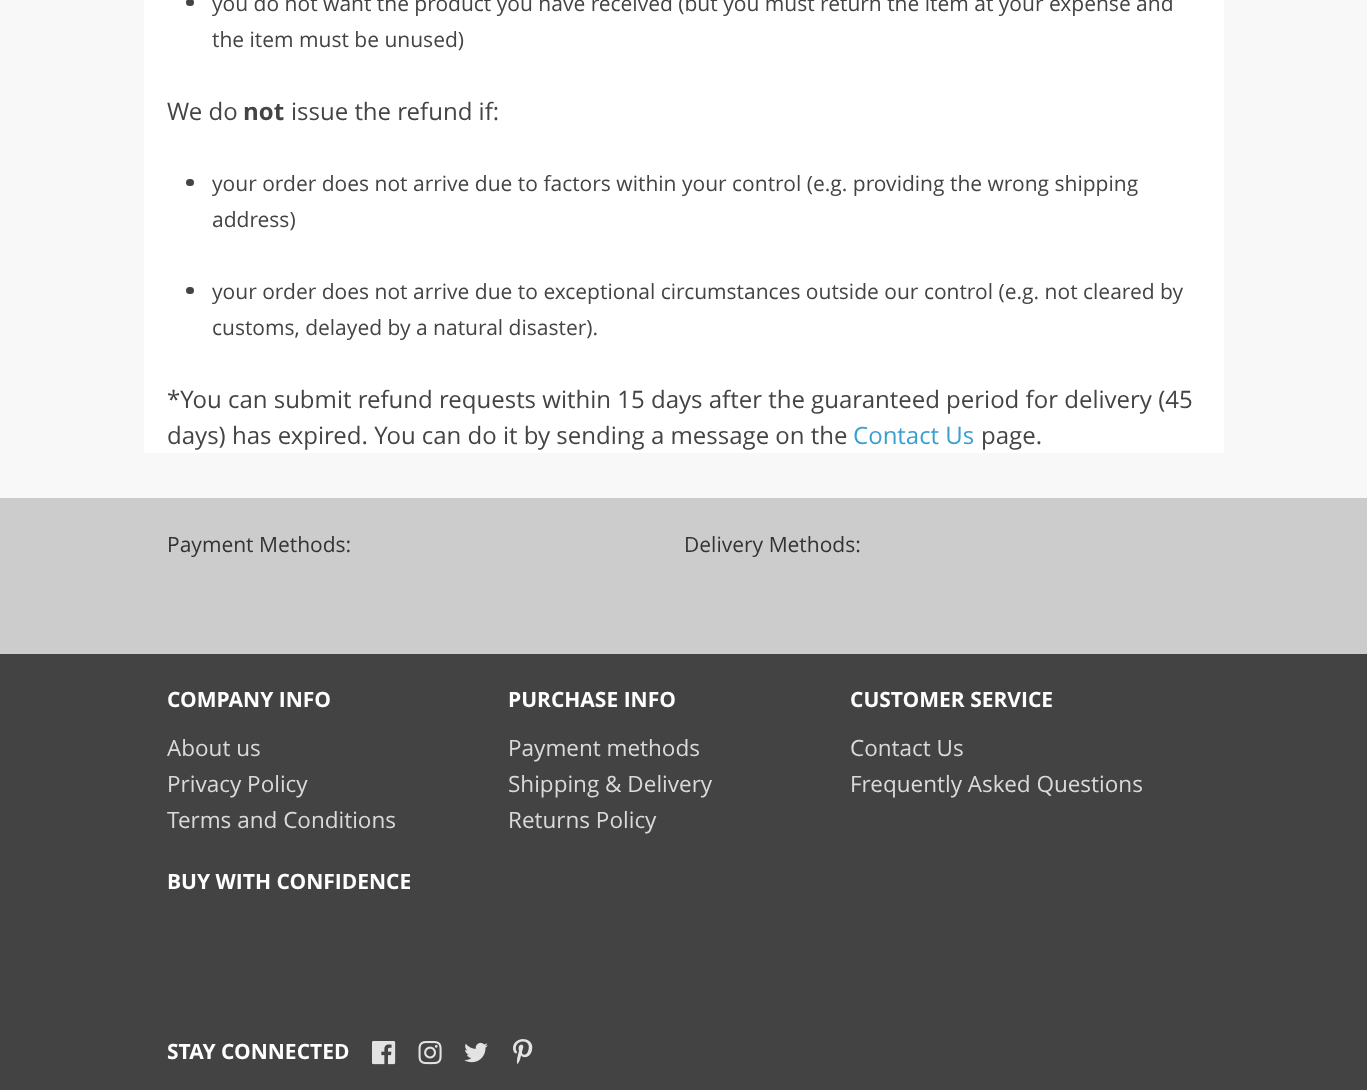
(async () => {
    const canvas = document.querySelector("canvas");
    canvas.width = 1367;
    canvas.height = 1090;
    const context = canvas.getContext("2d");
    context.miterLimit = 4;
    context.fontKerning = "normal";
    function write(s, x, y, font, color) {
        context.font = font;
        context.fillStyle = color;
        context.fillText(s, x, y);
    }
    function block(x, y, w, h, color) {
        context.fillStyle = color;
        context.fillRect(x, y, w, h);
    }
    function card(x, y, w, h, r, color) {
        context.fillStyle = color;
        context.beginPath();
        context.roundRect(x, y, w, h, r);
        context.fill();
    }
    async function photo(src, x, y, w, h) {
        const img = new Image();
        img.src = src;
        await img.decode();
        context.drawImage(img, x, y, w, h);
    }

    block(0, 0, 1367, 1090, "rgb(248, 248, 248)");
    block(144, 0, 1080, 453, "rgb(255, 255, 255)");
    card(186, -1, 8, 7, 3.5, "rgb(68, 68, 68)");
    write("you do not want the product you have received (but you must return the item at your expense and", 212, 11, "21px Open Sans", "rgb(68, 68, 68)");
    write("the item must be unused)", 212, 47, "21px Open Sans", "rgb(68, 68, 68)");
    write("We do", 167, 120, "24px Open Sans", "rgb(68, 68, 68)");
    write("not", 243, 120, "bold 24px Open Sans", "rgb(68, 68, 68)");
    write("issue the refund if:", 291, 120, "24px Open Sans", "rgb(68, 68, 68)");
    card(186, 179, 8, 7, 3.5, "rgb(68, 68, 68)");
    write("your order does not arrive due to factors within your control (e.g. providing the wrong shipping", 212, 191, "21px Open Sans", "rgb(68, 68, 68)");
    write("address)", 212, 227, "21px Open Sans", "rgb(68, 68, 68)");
    card(186, 287, 8, 7, 3.5, "rgb(68, 68, 68)");
    write("your order does not arrive due to exceptional circumstances outside our control (e.g. not cleared by", 212, 299, "21px Open Sans", "rgb(68, 68, 68)");
    write("customs, delayed by a natural disaster).", 212, 335, "21px Open Sans", "rgb(68, 68, 68)");
    write("*You can submit refund requests within 15 days after the guaranteed period for delivery (45", 167, 408, "24px Open Sans", "rgb(68, 68, 68)");
    write("days) has expired. You can do it by sending a message on the", 167, 444, "24px Open Sans", "rgb(68, 68, 68)");
    write("Contact Us", 853, 444, "24px Open Sans", "rgb(57, 159, 210)");
    write("page.", 981, 444, "24px Open Sans", "rgb(68, 68, 68)");
    block(0, 654, 1367, 436, "rgb(67, 67, 67)");
    block(0, 498, 1367, 156, "rgb(204, 204, 204)");
    write("Payment Methods:", 167, 552, "21px Open Sans", "rgb(51, 51, 51)");
    write("Delivery Methods:", 684, 552, "21px Open Sans", "rgb(51, 51, 51)");
    write("COMPANY INFO", 167, 707, "bold 21px Open Sans", "rgb(255, 255, 255)");
    write("About us", 167, 756, "22.5px Open Sans", "rgb(218, 218, 218)");
    write("Privacy Policy", 167, 792, "22.5px Open Sans", "rgb(218, 218, 218)");
    write("Terms and Conditions", 167, 828, "22.5px Open Sans", "rgb(218, 218, 218)");
    write("PURCHASE INFO", 508, 707, "bold 21px Open Sans", "rgb(255, 255, 255)");
    write("Payment methods", 508, 756, "22.5px Open Sans", "rgb(218, 218, 218)");
    write("Shipping & Delivery", 508, 792, "22.5px Open Sans", "rgb(218, 218, 218)");
    write("Returns Policy", 508, 828, "22.5px Open Sans", "rgb(218, 218, 218)");
    write("CUSTOMER SERVICE", 850, 707, "bold 21px Open Sans", "rgb(255, 255, 255)");
    write("Contact Us", 850, 756, "22.5px Open Sans", "rgb(218, 218, 218)");
    write("Frequently Asked Questions", 850, 792, "22.5px Open Sans", "rgb(218, 218, 218)");
    write("BUY WITH CONFIDENCE", 167, 889, "bold 21px Open Sans", "rgb(255, 255, 255)");
    write("STAY CONNECTED", 167, 1059, "bold 21px Open Sans", "rgb(255, 255, 255)");
    await photo("media/1.png", 372, 1041, 24, 24);
    await photo("media/2.png", 418, 1041, 24, 24);
    await photo("media/3.png", 464, 1042, 24, 21);
    await photo("media/4.png", 513, 1039, 20, 26);
})();
